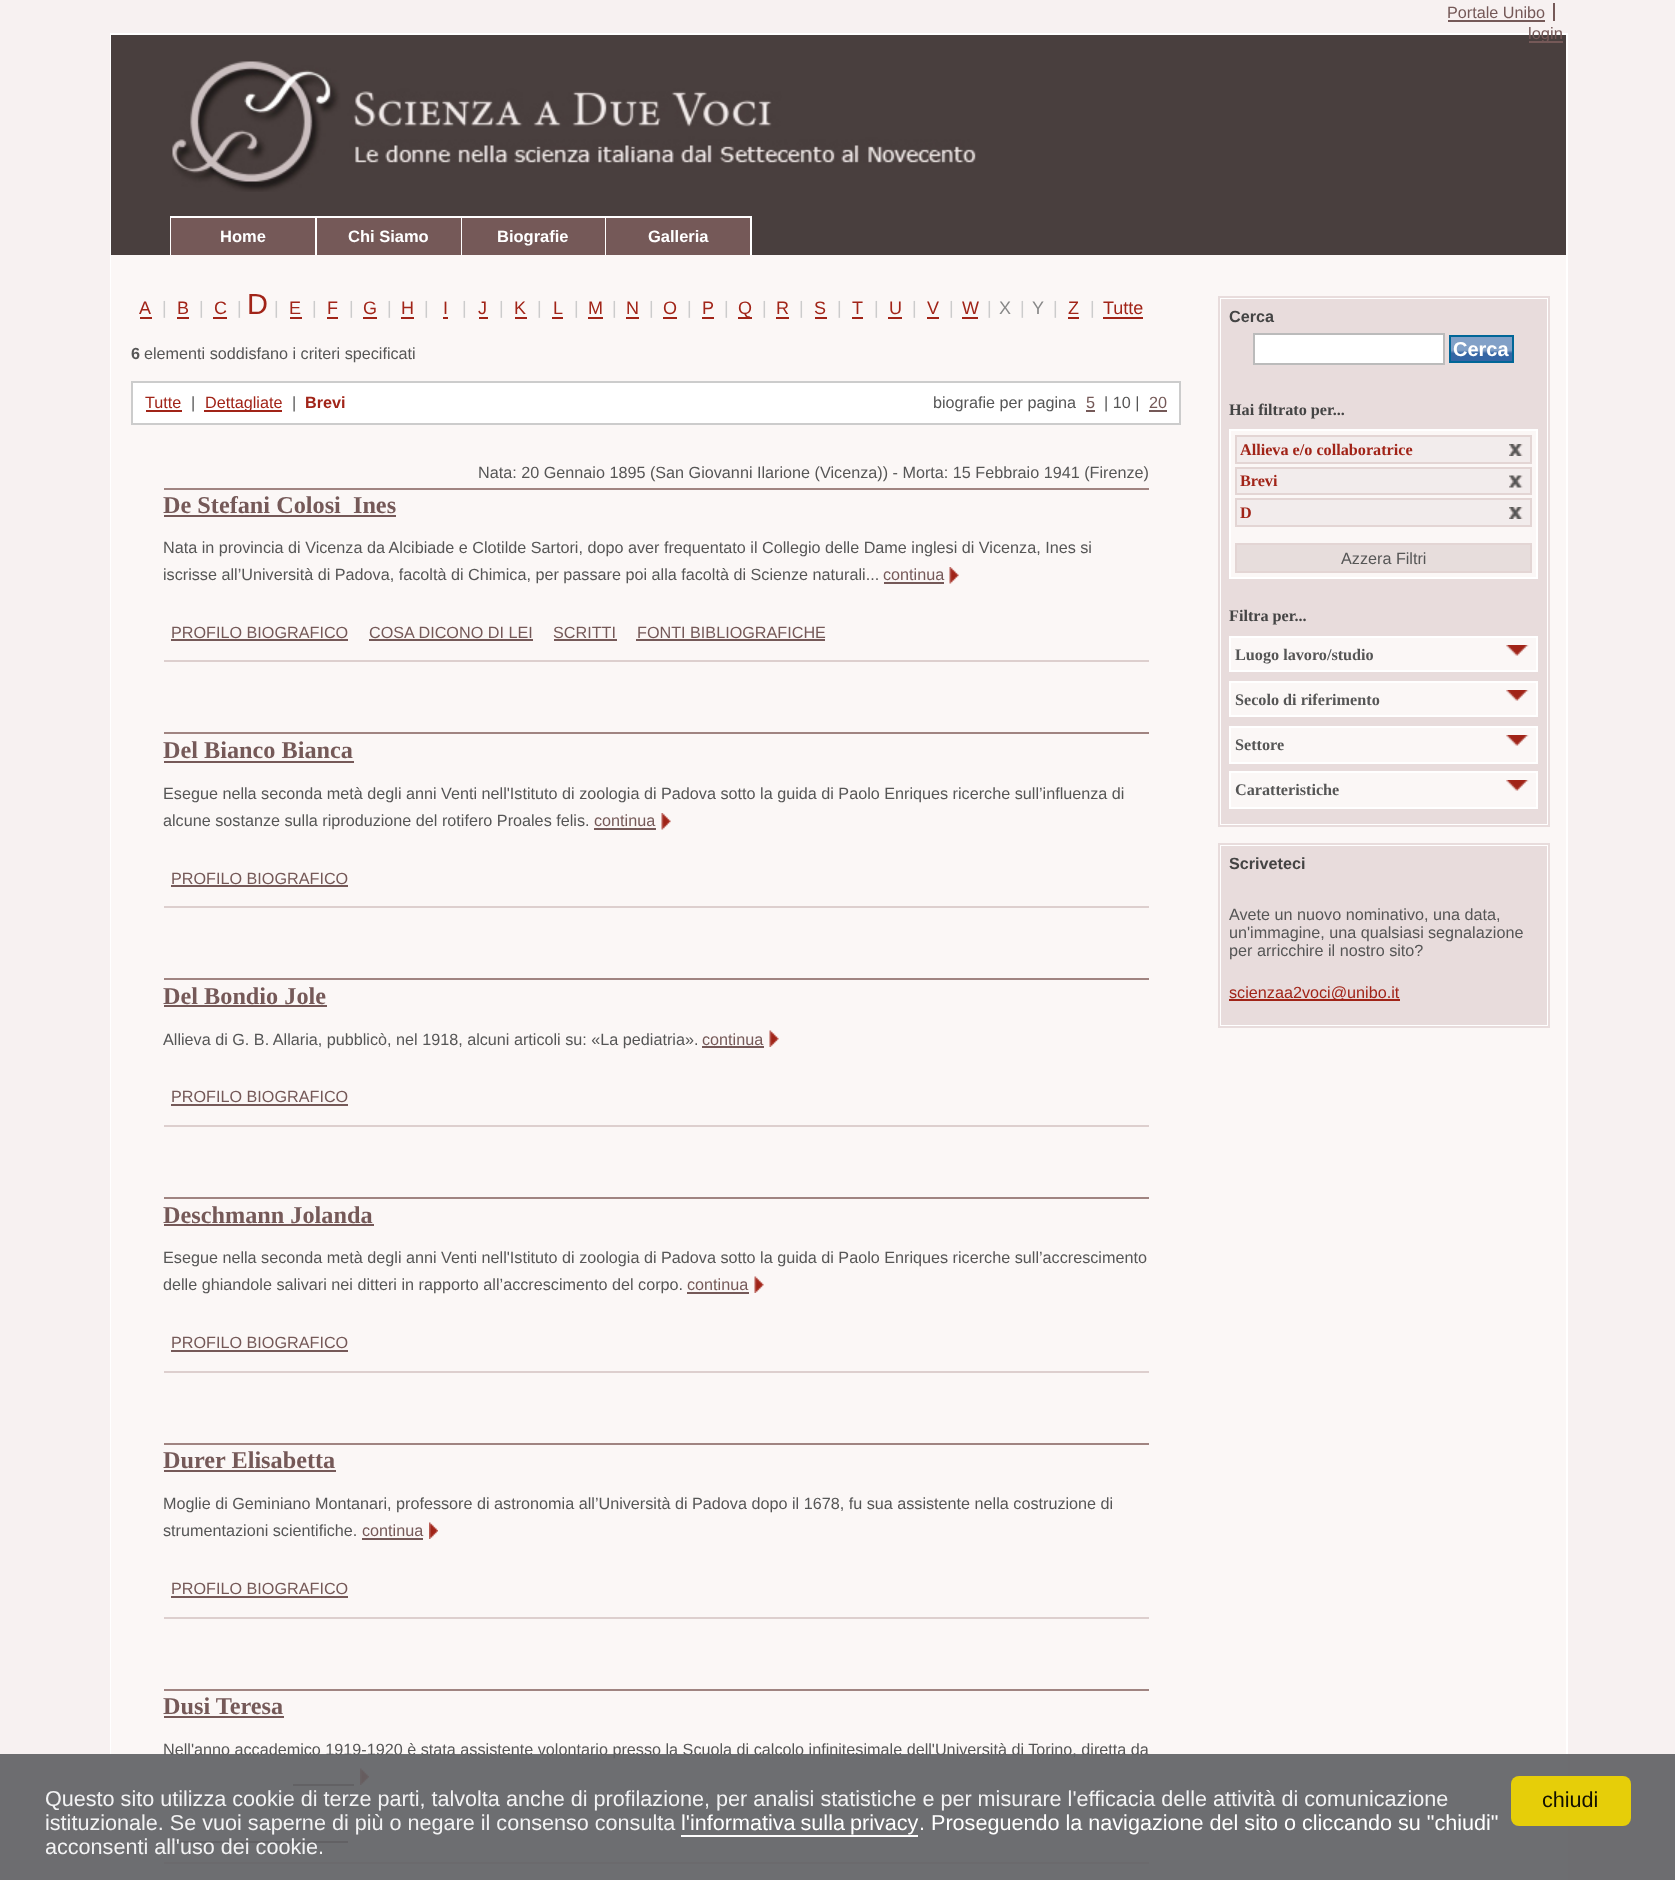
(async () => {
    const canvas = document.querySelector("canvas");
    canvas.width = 1675;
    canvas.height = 1880;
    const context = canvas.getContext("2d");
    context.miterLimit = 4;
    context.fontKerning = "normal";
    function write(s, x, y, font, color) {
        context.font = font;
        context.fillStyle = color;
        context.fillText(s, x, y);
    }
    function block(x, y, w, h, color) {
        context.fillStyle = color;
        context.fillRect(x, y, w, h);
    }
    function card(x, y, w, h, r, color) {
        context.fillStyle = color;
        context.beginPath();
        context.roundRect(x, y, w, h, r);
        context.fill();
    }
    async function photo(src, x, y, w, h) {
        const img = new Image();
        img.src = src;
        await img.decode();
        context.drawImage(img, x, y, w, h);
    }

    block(0, 0, 1675, 1880, "rgb(247, 241, 241)");
    context.strokeStyle = "rgb(255, 255, 255)";
    context.lineWidth = 2;
    context.strokeRect(111, 34, 1456, 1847);
    block(111, 35, 1455, 220, "rgb(73, 63, 62)");
    write("Portale Unibo", 1447, 18, "16.2px Liberation Sans", "rgb(117, 89, 88)");
    block(1553, 3, 2, 18, "rgb(117, 89, 88)");
    block(1448, 20, 97, 2, "rgb(117, 89, 88)");
    block(1529, 41, 34, 2, "rgb(117, 89, 88)");
    write("login", 1528, 39, "16.5px Liberation Sans", "rgb(117, 89, 88)");
    await photo("media/1.png", 172, 61, 804, 131);
    block(170, 216, 582, 2, "rgb(255, 255, 255)");
    block(170, 216, 2, 39, "rgb(255, 255, 255)");
    block(171, 218, 144, 37, "rgb(117, 89, 88)");
    block(315, 218, 2, 37, "rgb(255, 255, 255)");
    write("Home", 220, 242, "bold 16.5px Liberation Sans", "rgb(255, 255, 255)");
    block(317, 218, 144, 37, "rgb(117, 89, 88)");
    block(461, 218, 1, 37, "rgb(255, 255, 255)");
    write("Chi Siamo", 348, 242, "bold 16.5px Liberation Sans", "rgb(255, 255, 255)");
    block(462, 218, 143, 37, "rgb(117, 89, 88)");
    block(605, 218, 1, 37, "rgb(255, 255, 255)");
    write("Biografie", 497, 242, "bold 16.5px Liberation Sans", "rgb(255, 255, 255)");
    block(606, 218, 144, 37, "rgb(117, 89, 88)");
    block(750, 218, 2, 37, "rgb(255, 255, 255)");
    write("Galleria", 648, 242, "bold 16.5px Liberation Sans", "rgb(255, 255, 255)");
    block(111, 255, 1455, 1625, "rgb(251, 247, 246)");
    write("A", 139, 314, "18px Liberation Sans", "rgb(161, 36, 24)");
    block(140, 317, 12, 2, "rgb(161, 36, 24)");
    write("|", 162, 314, "18px Liberation Sans", "rgb(204, 204, 204)");
    write("B", 177, 314, "18px Liberation Sans", "rgb(161, 36, 24)");
    block(177, 317, 12, 2, "rgb(161, 36, 24)");
    write("|", 199, 314, "18px Liberation Sans", "rgb(204, 204, 204)");
    write("C", 214, 314, "18px Liberation Sans", "rgb(161, 36, 24)");
    block(213, 317, 14, 2, "rgb(161, 36, 24)");
    write("|", 237, 314, "18px Liberation Sans", "rgb(204, 204, 204)");
    write("D", 247, 314, "29px Liberation Sans", "rgb(161, 36, 24)");
    write("|", 274, 314, "18px Liberation Sans", "rgb(204, 204, 204)");
    write("E", 289, 314, "18px Liberation Sans", "rgb(161, 36, 24)");
    block(290, 317, 12, 2, "rgb(161, 36, 24)");
    write("|", 312, 314, "18px Liberation Sans", "rgb(204, 204, 204)");
    write("F", 327, 314, "18px Liberation Sans", "rgb(161, 36, 24)");
    block(327, 317, 11, 2, "rgb(161, 36, 24)");
    write("|", 349, 314, "18px Liberation Sans", "rgb(204, 204, 204)");
    write("G", 363, 314, "18px Liberation Sans", "rgb(161, 36, 24)");
    block(363, 317, 14, 2, "rgb(161, 36, 24)");
    write("|", 387, 314, "18px Liberation Sans", "rgb(204, 204, 204)");
    write("H", 401, 314, "18px Liberation Sans", "rgb(161, 36, 24)");
    block(401, 317, 13, 2, "rgb(161, 36, 24)");
    write("|", 424, 314, "18px Liberation Sans", "rgb(204, 204, 204)");
    write("I", 443, 314, "18px Liberation Sans", "rgb(161, 36, 24)");
    block(443, 317, 5, 2, "rgb(161, 36, 24)");
    write("|", 462, 314, "18px Liberation Sans", "rgb(204, 204, 204)");
    write("J", 478, 314, "18px Liberation Sans", "rgb(161, 36, 24)");
    block(479, 317, 9, 2, "rgb(161, 36, 24)");
    write("|", 499, 314, "18px Liberation Sans", "rgb(204, 204, 204)");
    write("K", 514, 314, "18px Liberation Sans", "rgb(161, 36, 24)");
    block(515, 317, 12, 2, "rgb(161, 36, 24)");
    write("|", 537, 314, "18px Liberation Sans", "rgb(204, 204, 204)");
    write("L", 553, 314, "18px Liberation Sans", "rgb(161, 36, 24)");
    block(552, 317, 11, 2, "rgb(161, 36, 24)");
    write("|", 574, 314, "18px Liberation Sans", "rgb(204, 204, 204)");
    write("M", 588, 314, "18px Liberation Sans", "rgb(161, 36, 24)");
    block(588, 317, 15, 2, "rgb(161, 36, 24)");
    write("|", 612, 314, "18px Liberation Sans", "rgb(204, 204, 204)");
    write("N", 626, 314, "18px Liberation Sans", "rgb(161, 36, 24)");
    block(626, 317, 13, 2, "rgb(161, 36, 24)");
    write("|", 649, 314, "18px Liberation Sans", "rgb(204, 204, 204)");
    write("O", 663, 314, "18px Liberation Sans", "rgb(161, 36, 24)");
    block(663, 317, 14, 2, "rgb(161, 36, 24)");
    write("|", 687, 314, "18px Liberation Sans", "rgb(204, 204, 204)");
    write("P", 702, 314, "18px Liberation Sans", "rgb(161, 36, 24)");
    block(702, 317, 12, 2, "rgb(161, 36, 24)");
    write("|", 724, 314, "18px Liberation Sans", "rgb(204, 204, 204)");
    block(738, 317, 14, 2, "rgb(161, 36, 24)");
    write("Q", 738, 314, "18px Liberation Sans", "rgb(161, 36, 24)");
    write("|", 762, 314, "18px Liberation Sans", "rgb(204, 204, 204)");
    write("R", 776, 314, "18px Liberation Sans", "rgb(161, 36, 24)");
    block(776, 317, 13, 2, "rgb(161, 36, 24)");
    write("|", 799, 314, "18px Liberation Sans", "rgb(204, 204, 204)");
    write("S", 814, 314, "18px Liberation Sans", "rgb(161, 36, 24)");
    block(815, 317, 12, 2, "rgb(161, 36, 24)");
    write("|", 837, 314, "18px Liberation Sans", "rgb(204, 204, 204)");
    write("T", 852, 314, "18px Liberation Sans", "rgb(161, 36, 24)");
    block(852, 317, 11, 2, "rgb(161, 36, 24)");
    write("|", 874, 314, "18px Liberation Sans", "rgb(204, 204, 204)");
    write("U", 889, 314, "18px Liberation Sans", "rgb(161, 36, 24)");
    block(888, 317, 14, 2, "rgb(161, 36, 24)");
    write("|", 912, 314, "18px Liberation Sans", "rgb(204, 204, 204)");
    write("V", 927, 314, "18px Liberation Sans", "rgb(161, 36, 24)");
    block(927, 317, 12, 2, "rgb(161, 36, 24)");
    write("|", 949, 314, "18px Liberation Sans", "rgb(204, 204, 204)");
    write("W", 962, 314, "18px Liberation Sans", "rgb(161, 36, 24)");
    block(962, 317, 16, 2, "rgb(161, 36, 24)");
    write("|", 987, 314, "18px Liberation Sans", "rgb(204, 204, 204)");
    write("X", 999, 314, "18px Liberation Sans", "rgb(136, 136, 136)");
    write("|", 1020, 314, "18px Liberation Sans", "rgb(204, 204, 204)");
    write("Y", 1032, 314, "18px Liberation Sans", "rgb(136, 136, 136)");
    write("|", 1053, 314, "18px Liberation Sans", "rgb(204, 204, 204)");
    write("Z", 1068, 314, "18px Liberation Sans", "rgb(161, 36, 24)");
    block(1068, 317, 11, 2, "rgb(161, 36, 24)");
    write("|", 1090, 314, "18px Liberation Sans", "rgb(204, 204, 204)");
    write("Tutte", 1103, 314, "18px Liberation Sans", "rgb(161, 36, 24)");
    block(1103, 317, 40, 2, "rgb(161, 36, 24)");
    write("6", 131, 359, "bold 16.2px Liberation Sans", "rgb(86, 86, 86)");
    write("elementi soddisfano i criteri specificati", 144, 359, "16.2px Liberation Sans", "rgb(86, 86, 86)");
    context.fillStyle = "rgb(255, 255, 255)";
    context.beginPath();
    context.rect(132, 382, 1048, 42);
    context.fill();
    context.strokeStyle = "rgb(204, 204, 204)";
    context.stroke();
    write("Tutte", 145, 408, "16.2px Liberation Sans", "rgb(161, 36, 24)");
    block(146, 410, 36, 2, "rgb(161, 36, 24)");
    write("|", 191, 408, "16.2px Liberation Sans", "rgb(86, 86, 86)");
    block(204, 410, 78, 2, "rgb(161, 36, 24)");
    write("Dettagliate", 205, 408, "16.2px Liberation Sans", "rgb(161, 36, 24)");
    write("|", 292, 408, "16.2px Liberation Sans", "rgb(86, 86, 86)");
    write("Brevi", 305, 408, "bold 16.2px Liberation Sans", "rgb(161, 36, 24)");
    write("biografie per pagina", 933, 408, "16.2px Liberation Sans", "rgb(86, 86, 86)");
    write("5", 1086, 408, "16.2px Liberation Sans", "rgb(117, 89, 88)");
    block(1086, 410, 9, 2, "rgb(117, 89, 88)");
    write("| 10 |", 1104, 408, "16.2px Liberation Sans", "rgb(86, 86, 86)");
    write("20", 1149, 408, "16.2px Liberation Sans", "rgb(117, 89, 88)");
    block(1149, 410, 18, 2, "rgb(117, 89, 88)");
    block(164, 660, 985, 2, "rgb(221, 207, 206)");
    block(164, 488, 985, 2, "rgb(160, 132, 129)");
    write("Nata: 20 Gennaio 1895 (San Giovanni Ilarione (Vicenza)) - Morta: 15 Febbraio 1941 (Firenze)", 478, 478, "16.2px Liberation Sans", "rgb(86, 86, 86)");
    write("De Stefani Colosi  Ines", 163, 513, "bold 24.25px Liberation Serif", "rgb(117, 89, 88)");
    block(164, 515, 232, 2, "rgb(117, 89, 88)");
    write("Nata in provincia di Vicenza da Alcibiade e Clotilde Sartori, dopo aver frequentato il Collegio delle Dame inglesi di Vicenza, Ines si", 163, 553, "16.2px Liberation Sans", "rgb(86, 86, 86)");
    write("iscrisse all’Università di Padova, facoltà di Chimica, per passare poi alla facoltà di Scienze naturali...", 163, 580, "16.2px Liberation Sans", "rgb(86, 86, 86)");
    write("continua", 883, 580, "16.2px Liberation Sans", "rgb(117, 89, 88)");
    block(884, 582, 60, 2, "rgb(117, 89, 88)");
    await photo("media/2.png", 949, 567, 10, 17);
    write("PROFILO BIOGRAFICO", 171, 638, "16.2px Liberation Sans", "rgb(117, 89, 88)");
    block(171, 639, 177, 2, "rgb(117, 89, 88)");
    write("COSA DICONO DI LEI", 369, 638, "16.2px Liberation Sans", "rgb(117, 89, 88)");
    block(369, 639, 164, 2, "rgb(117, 89, 88)");
    write("SCRITTI", 553, 638, "16.2px Liberation Sans", "rgb(117, 89, 88)");
    block(554, 639, 63, 2, "rgb(117, 89, 88)");
    write("FONTI BIBLIOGRAFICHE", 637, 638, "16.2px Liberation Sans", "rgb(117, 89, 88)");
    block(636, 639, 189, 2, "rgb(117, 89, 88)");
    block(164, 906, 985, 2, "rgb(221, 207, 206)");
    block(164, 732, 985, 2, "rgb(160, 132, 129)");
    write("Del Bianco Bianca", 163, 758, "bold 24.25px Liberation Serif", "rgb(117, 89, 88)");
    block(164, 761, 190, 2, "rgb(117, 89, 88)");
    write("Esegue nella seconda metà degli anni Venti nell'Istituto di zoologia di Padova sotto la guida di Paolo Enriques ricerche sull’influenza di", 163, 799, "16.2px Liberation Sans", "rgb(86, 86, 86)");
    write("alcune sostanze sulla riproduzione del rotifero Proales felis.", 163, 826, "16.2px Liberation Sans", "rgb(86, 86, 86)");
    write("continua", 594, 826, "16.2px Liberation Sans", "rgb(117, 89, 88)");
    block(594, 828, 62, 2, "rgb(117, 89, 88)");
    await photo("media/3.png", 661, 813, 10, 17);
    write("PROFILO BIOGRAFICO", 171, 884, "16.2px Liberation Sans", "rgb(117, 89, 88)");
    block(171, 885, 177, 2, "rgb(117, 89, 88)");
    block(164, 1125, 985, 2, "rgb(221, 207, 206)");
    block(164, 978, 985, 2, "rgb(160, 132, 129)");
    write("Del Bondio Jole", 163, 1004, "bold 24.25px Liberation Serif", "rgb(117, 89, 88)");
    block(164, 1005, 163, 2, "rgb(117, 89, 88)");
    write("Allieva di G. B. Allaria, pubblicò, nel 1918, alcuni articoli su: «La pediatria».", 163, 1045, "16.2px Liberation Sans", "rgb(86, 86, 86)");
    write("continua", 702, 1045, "16.2px Liberation Sans", "rgb(117, 89, 88)");
    block(702, 1046, 62, 2, "rgb(117, 89, 88)");
    await photo("media/4.png", 769, 1030, 10, 17);
    write("PROFILO BIOGRAFICO", 171, 1102, "16.2px Liberation Sans", "rgb(117, 89, 88)");
    block(171, 1104, 177, 2, "rgb(117, 89, 88)");
    block(164, 1371, 985, 2, "rgb(221, 207, 206)");
    block(164, 1197, 985, 2, "rgb(160, 132, 129)");
    write("Deschmann Jolanda", 163, 1223, "bold 24.25px Liberation Serif", "rgb(117, 89, 88)");
    block(164, 1224, 210, 2, "rgb(117, 89, 88)");
    write("Esegue nella seconda metà degli anni Venti nell'Istituto di zoologia di Padova sotto la guida di Paolo Enriques ricerche sull’accrescimento", 163, 1263, "16.2px Liberation Sans", "rgb(86, 86, 86)");
    write("delle ghiandole salivari nei ditteri in rapporto all’accrescimento del corpo.", 163, 1290, "16.2px Liberation Sans", "rgb(86, 86, 86)");
    write("continua", 687, 1290, "16.2px Liberation Sans", "rgb(117, 89, 88)");
    block(687, 1292, 62, 2, "rgb(117, 89, 88)");
    await photo("media/5.png", 754, 1276, 10, 17);
    write("PROFILO BIOGRAFICO", 171, 1348, "16.2px Liberation Sans", "rgb(117, 89, 88)");
    block(171, 1350, 177, 2, "rgb(117, 89, 88)");
    block(164, 1617, 985, 2, "rgb(221, 207, 206)");
    block(164, 1443, 985, 2, "rgb(160, 132, 129)");
    write("Durer Elisabetta", 163, 1468, "bold 24.25px Liberation Serif", "rgb(117, 89, 88)");
    block(164, 1470, 172, 2, "rgb(117, 89, 88)");
    write("Moglie di Geminiano Montanari, professore di astronomia all’Università di Padova dopo il 1678, fu sua assistente nella costruzione di", 163, 1509, "16.2px Liberation Sans", "rgb(86, 86, 86)");
    write("strumentazioni scientifiche.", 163, 1536, "16.2px Liberation Sans", "rgb(86, 86, 86)");
    write("continua", 362, 1536, "16.2px Liberation Sans", "rgb(117, 89, 88)");
    block(362, 1538, 61, 2, "rgb(117, 89, 88)");
    await photo("media/6.png", 429, 1522, 9, 17);
    write("PROFILO BIOGRAFICO", 171, 1594, "16.2px Liberation Sans", "rgb(117, 89, 88)");
    block(171, 1596, 177, 2, "rgb(117, 89, 88)");
    block(164, 1862, 985, 2, "rgb(221, 207, 206)");
    block(164, 1689, 985, 2, "rgb(160, 132, 129)");
    write("Dusi Teresa", 163, 1714, "bold 24.25px Liberation Serif", "rgb(117, 89, 88)");
    block(164, 1716, 120, 2, "rgb(117, 89, 88)");
    write("Nell'anno accademico 1919-1920 è stata assistente volontario presso la Scuola di calcolo infinitesimale dell'Università di Torino, diretta da", 163, 1755, "16.2px Liberation Sans", "rgb(86, 86, 86)");
    block(293, 1784, 61, 2, "rgb(117, 89, 88)");
    await photo("media/6.png", 360, 1768, 9, 17);
    block(171, 1841, 177, 2, "rgb(117, 89, 88)");
    context.fillStyle = "rgb(255, 255, 255)";
    context.beginPath();
    context.rect(1219, 297, 330, 529);
    context.fill();
    context.strokeStyle = "rgb(232, 220, 220)";
    context.stroke();
    block(1221, 299, 326, 525, "rgb(232, 220, 220)");
    write("Cerca", 1229, 322, "bold 16.2px Liberation Sans", "rgb(68, 68, 68)");
    context.fillStyle = "rgb(255, 255, 255)";
    context.beginPath();
    context.rect(1254, 334, 190, 30);
    context.fill();
    context.strokeStyle = "rgb(187, 187, 187)";
    context.stroke();
    await photo("media/7.png", 1451, 337, 61, 24);
    context.strokeStyle = "rgb(0, 102, 151)";
    context.strokeRect(1450, 336, 63, 26);
    write("Cerca", 1453, 356, "bold 20px Liberation Sans", "rgb(255, 255, 255)");
    write("Hai filtrato per...", 1229, 415, "bold 16.2px Liberation Serif", "rgb(68, 68, 68)");
    context.fillStyle = "rgb(251, 247, 246)";
    context.beginPath();
    context.rect(1230, 430, 307, 148);
    context.fill();
    context.strokeStyle = "rgb(255, 255, 255)";
    context.stroke();
    block(1237, 437, 293, 25, "rgb(242, 236, 236)");
    await photo("media/8.png", 1509, 444, 14, 12);
    context.strokeStyle = "rgb(227, 213, 212)";
    context.strokeRect(1236, 436, 295, 27);
    write("Allieva e/o collaboratrice", 1240, 455, "bold 16.2px Liberation Serif", "rgb(161, 36, 24)");
    block(1237, 469, 293, 24, "rgb(242, 236, 236)");
    await photo("media/9.png", 1509, 475, 14, 13);
    context.strokeRect(1236, 468, 295, 26);
    write("Brevi", 1240, 486, "bold 16.2px Liberation Serif", "rgb(161, 36, 24)");
    block(1237, 500, 293, 25, "rgb(242, 236, 236)");
    await photo("media/8.png", 1509, 507, 14, 12);
    context.strokeRect(1236, 499, 295, 27);
    write("D", 1240, 518, "bold 16.2px Liberation Serif", "rgb(161, 36, 24)");
    context.fillStyle = "rgb(231, 221, 220)";
    context.beginPath();
    context.rect(1236, 544, 295, 28);
    context.fill();
    context.stroke();
    write("Azzera Filtri", 1341, 564, "16.2px Liberation Sans", "rgb(86, 86, 86)");
    write("Filtra per...", 1229, 621, "bold 16.2px Liberation Serif", "rgb(68, 68, 68)");
    block(1231, 638, 305, 32, "rgb(251, 247, 246)");
    await photo("media/10.png", 1506, 645, 23, 11);
    context.strokeStyle = "rgb(255, 255, 255)";
    context.strokeRect(1230, 637, 307, 34);
    write("Luogo lavoro/studio", 1235, 660, "bold 16.2px Liberation Serif", "rgb(86, 86, 86)");
    block(1231, 683, 305, 32, "rgb(251, 247, 246)");
    await photo("media/10.png", 1506, 690, 23, 11);
    context.strokeRect(1230, 682, 307, 34);
    write("Secolo di riferimento", 1235, 705, "bold 16.2px Liberation Serif", "rgb(86, 86, 86)");
    block(1231, 728, 305, 34, "rgb(251, 247, 246)");
    await photo("media/10.png", 1506, 735, 23, 11);
    context.strokeRect(1230, 727, 307, 36);
    write("Settore", 1235, 750, "bold 16.2px Liberation Serif", "rgb(86, 86, 86)");
    block(1231, 773, 305, 34, "rgb(251, 247, 246)");
    await photo("media/10.png", 1506, 780, 23, 11);
    context.strokeRect(1230, 772, 307, 36);
    write("Caratteristiche", 1235, 795, "bold 16.2px Liberation Serif", "rgb(86, 86, 86)");
    context.fillStyle = "rgb(255, 255, 255)";
    context.beginPath();
    context.rect(1219, 844, 330, 183);
    context.fill();
    context.strokeStyle = "rgb(232, 220, 220)";
    context.stroke();
    block(1221, 846, 326, 179, "rgb(232, 220, 220)");
    write("Scriveteci", 1229, 869, "bold 16.2px Liberation Sans", "rgb(68, 68, 68)");
    write("Avete un nuovo nominativo, una data,", 1229, 920, "16.2px Liberation Sans", "rgb(86, 86, 86)");
    write("un'immagine, una qualsiasi", 1229, 938, "16.2px Liberation Sans", "rgb(86, 86, 86)");
    write("segnalazione", 1428, 938, "16.2px Liberation Sans", "rgb(86, 86, 86)");
    write("per arricchire il nostro sito?", 1229, 956, "16.2px Liberation Sans", "rgb(86, 86, 86)");
    block(1229, 999, 171, 2, "rgb(161, 36, 24)");
    write("scienzaa2voci@unibo.it", 1229, 998, "16.2px Liberation Sans", "rgb(161, 36, 24)");
    block(0, 1754, 1675, 126, "rgba(97, 98, 101, 0.92)");
    write("Questo sito utilizza cookie di terze parti, talvolta anche di profilazione, per analisi statistiche e per misurare l'efficacia delle attività di comunicazione", 45, 1806, "21.6px Liberation Sans", "rgb(243, 243, 244)");
    write("istituzionale. Se vuoi saperne di più o negare il consenso consulta", 45, 1830, "21.6px Liberation Sans", "rgb(243, 243, 244)");
    context.wordSpacing = "-1px";
    write("l'informativa sulla privacy", 681, 1830, "21.6px Liberation Sans", "rgb(255, 255, 255)");
    block(681, 1835, 237, 2, "rgb(255, 254, 254)");
    context.wordSpacing = "0px";
    write(". Proseguendo la navigazione del sito o cliccando su \"chiudi\"", 919, 1830, "21.6px Liberation Sans", "rgb(255, 255, 255)");
    write("acconsenti all'uso dei cookie.", 45, 1854, "21.6px Liberation Sans", "rgb(243, 243, 244)");
    card(1511, 1776, 120, 50, 8, "rgb(230, 206, 9)");
    write("chiudi", 1542, 1807, "21.6px Liberation Sans", "rgb(18, 16, 1)");
})();
